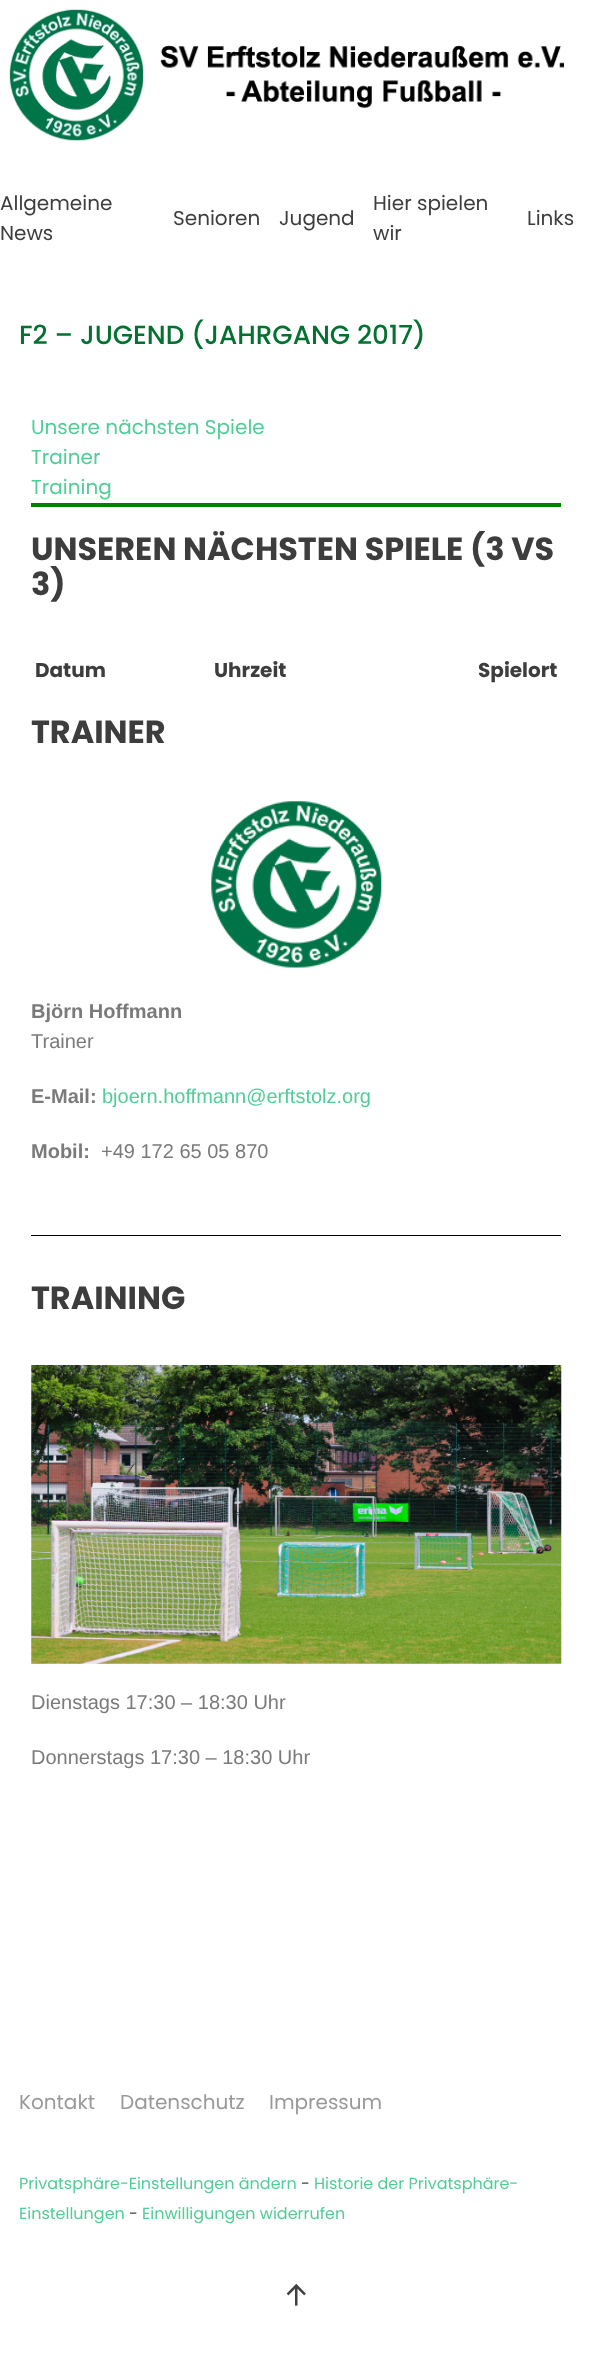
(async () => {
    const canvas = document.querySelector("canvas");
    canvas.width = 592;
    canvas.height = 2362;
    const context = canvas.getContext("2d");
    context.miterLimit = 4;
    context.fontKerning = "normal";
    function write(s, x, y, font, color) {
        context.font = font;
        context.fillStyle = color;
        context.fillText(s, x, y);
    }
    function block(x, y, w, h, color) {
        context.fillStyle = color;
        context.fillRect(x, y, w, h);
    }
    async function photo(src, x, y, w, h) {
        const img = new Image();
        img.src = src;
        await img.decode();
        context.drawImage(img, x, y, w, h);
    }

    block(0, 0, 592, 2362, "rgb(255, 255, 255)");
    await photo("media/1.png", 9, 9, 555, 132);
    write("Allgemeine", 0, 210, "20px Poppins", "rgb(61, 61, 61)");
    write("News", 0, 240, "20px Poppins", "rgb(61, 61, 61)");
    write("Senioren", 173, 225, "20px Poppins", "rgb(61, 61, 61)");
    write("Jugend", 279, 225, "20px Poppins", "rgb(61, 61, 61)");
    write("Hier spielen", 373, 210, "20px Poppins", "rgb(61, 61, 61)");
    write("wir", 373, 240, "20px Poppins", "rgb(61, 61, 61)");
    write("Links", 527, 225, "20px Poppins", "rgb(61, 61, 61)");
    write("F2 – JUGEND (JAHRGANG 2017)", 19, 344, "500 26.25px Poppins", "rgb(3, 113, 48)");
    write("Unsere nächsten Spiele", 31, 434, "20px Poppins", "rgb(81, 205, 152)");
    write("Trainer", 31, 464, "20px Poppins", "rgb(81, 205, 152)");
    write("Training", 31, 494, "20px Poppins", "rgb(81, 205, 152)");
    block(31, 503, 530, 4, "rgb(0, 128, 0)");
    write("UNSEREN NÄCHSTEN SPIELE (3 VS", 31, 560, "bold 31.9px Poppins", "rgb(61, 61, 61)");
    write("3)", 31, 595, "bold 31.9px Poppins", "rgb(61, 61, 61)");
    write("Datum", 35, 677, "bold 20px Poppins", "rgb(61, 61, 61)");
    write("Uhrzeit", 214, 677, "bold 20px Poppins", "rgb(61, 61, 61)");
    write("Spielort", 478, 677, "bold 20px Poppins", "rgb(61, 61, 61)");
    write("TRAINER", 31, 743, "bold 31.9px Poppins", "rgb(61, 61, 61)");
    await photo("media/2.png", 211, 801, 171, 167);
    write("Björn Hoffmann", 31, 1018, "bold 20px Liberation Sans", "rgb(122, 122, 122)");
    write("Trainer", 31, 1048, "20px Liberation Sans", "rgb(122, 122, 122)");
    write("E-Mail:", 31, 1103, "bold 20px Liberation Sans", "rgb(122, 122, 122)");
    write("bjoern.hoffmann@erftstolz.org", 102, 1103, "20px Liberation Sans", "rgb(81, 205, 152)");
    write("Mobil:", 31, 1158, "bold 20px Liberation Sans", "rgb(122, 122, 122)");
    write("+49 172 65 05 870", 101, 1158, "20px Liberation Sans", "rgb(122, 122, 122)");
    block(31, 1235, 530, 1, "rgb(0, 0, 0)");
    write("TRAINING", 31, 1309, "bold 31.9px Poppins", "rgb(61, 61, 61)");
    await photo("media/3.png", 31, 1365, 531, 299);
    write("Dienstags 17:30 – 18:30 Uhr", 31, 1709, "20px Liberation Sans", "rgb(122, 122, 122)");
    write("Donnerstags 17:30 – 18:30 Uhr", 31, 1764, "20px Liberation Sans", "rgb(122, 122, 122)");
    write("Kontakt", 19, 2109, "20px Poppins", "rgb(153, 153, 153)");
    write("Datenschutz", 120, 2109, "20px Poppins", "rgb(153, 153, 153)");
    write("Impressum", 269, 2109, "20px Poppins", "rgb(153, 153, 153)");
    write("Privatsphäre-Einstellungen ändern", 19, 2189, "16px Poppins", "rgb(81, 205, 152)");
    write("-", 301, 2189, "16px Poppins", "rgb(61, 61, 61)");
    write("Historie der Privatsphäre-", 314, 2189, "16px Poppins", "rgb(81, 205, 152)");
    write("Einstellungen", 19, 2219, "16px Poppins", "rgb(81, 205, 152)");
    write("-", 129, 2219, "16px Poppins", "rgb(61, 61, 61)");
    write("Einwilligungen widerrufen", 142, 2219, "16px Poppins", "rgb(81, 205, 152)");
    await photo("media/4.png", 286, 2284, 20, 22);
})();
